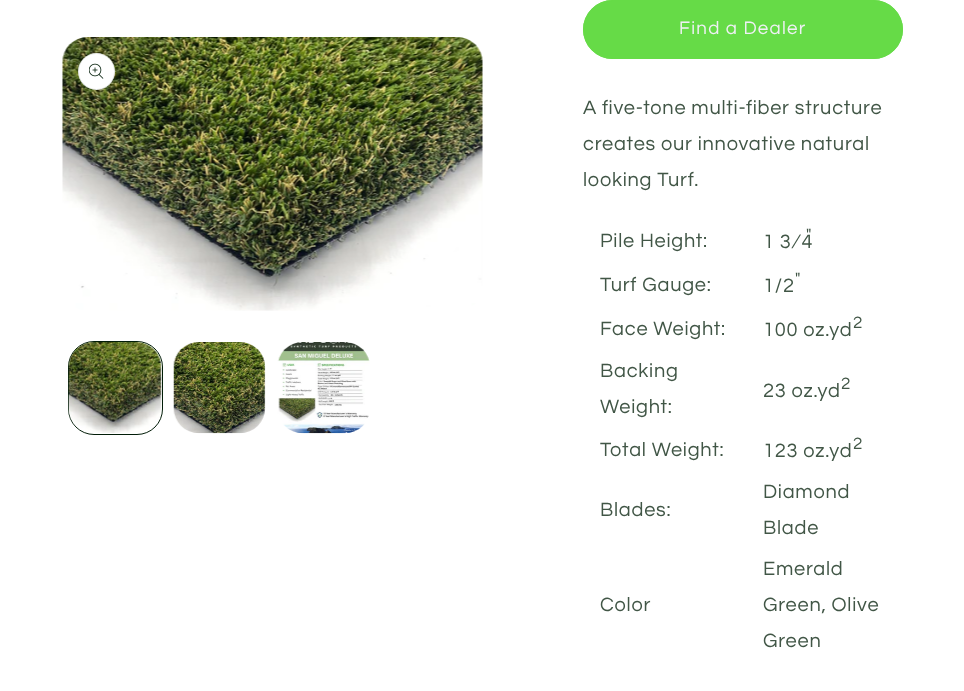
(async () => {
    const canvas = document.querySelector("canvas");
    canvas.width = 964;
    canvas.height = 691;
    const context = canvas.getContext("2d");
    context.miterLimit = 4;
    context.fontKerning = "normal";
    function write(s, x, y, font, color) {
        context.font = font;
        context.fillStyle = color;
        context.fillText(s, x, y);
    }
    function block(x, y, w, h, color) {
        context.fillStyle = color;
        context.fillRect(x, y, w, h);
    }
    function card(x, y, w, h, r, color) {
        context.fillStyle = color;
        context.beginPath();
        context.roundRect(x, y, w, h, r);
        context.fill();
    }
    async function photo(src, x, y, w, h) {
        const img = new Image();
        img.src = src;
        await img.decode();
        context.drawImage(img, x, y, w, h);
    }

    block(0, 0, 964, 691, "rgb(255, 255, 255)");
    await photo("media/1.png", 62, 37, 421, 274);
    context.beginPath();
    context.arc(96.5, 71.5, 18.5, 0, Math.PI * 2);
    context.fill();
    context.beginPath();
    context.arc(96.5, 71.5, 18, 0, Math.PI * 2);
    context.strokeStyle = "rgba(2, 29, 8, 0.1)";
    context.stroke();
    await photo("media/2.png", 89, 63, 15, 16);
    context.beginPath();
    context.roundRect(68.5, 341.5, 94, 93, 25.5);
    context.strokeStyle = "rgb(2, 29, 8)";
    context.stroke();
    await photo("media/3.png", 68, 342, 94, 91);
    await photo("media/4.png", 173, 342, 93, 92);
    await photo("media/5.png", 277, 342, 93, 92);
    card(583, 0, 320, 59, 29.5, "rgb(102, 219, 71)");
    context.beginPath();
    context.roundRect(583.5, 0.5, 319, 58, 29);
    context.strokeStyle = "rgb(102, 219, 71)";
    context.stroke();
    context.letterSpacing = "1.25px";
    write("Find a Dealer", 679, 34, "18.75px Questrial", "rgb(239, 240, 245)");
    context.letterSpacing = "0.75px";
    write("A five-tone multi-fiber structure", 583, 114, "20px Questrial", "rgb(65, 86, 70)");
    write("creates our innovative natural", 583, 150, "20px Questrial", "rgb(65, 86, 70)");
    write("looking Turf.", 583, 186, "20px Questrial", "rgb(65, 86, 70)");
    write("Pile Height:", 600, 247, "20px Questrial", "rgb(65, 86, 70)");
    write("\"", 806, 240, "17px Questrial", "rgb(65, 86, 70)");
    write("1 3⁄4", 763, 248, "20px Questrial", "rgb(65, 86, 70)");
    write("Turf Gauge:", 600, 291, "20px Questrial", "rgb(65, 86, 70)");
    write("\"", 795, 284, "17px Questrial", "rgb(65, 86, 70)");
    write("1/2", 763, 292, "20px Questrial", "rgb(65, 86, 70)");
    write("Face Weight:", 600, 335, "20px Questrial", "rgb(65, 86, 70)");
    write("100 oz.yd", 763, 336, "20px Questrial", "rgb(65, 86, 70)");
    write("2", 853, 328, "17px Questrial", "rgb(65, 86, 70)");
    write("Backing", 600, 377, "20px Questrial", "rgb(65, 86, 70)");
    write("Weight:", 600, 413, "20px Questrial", "rgb(65, 86, 70)");
    write("23 oz.yd", 763, 397, "20px Questrial", "rgb(65, 86, 70)");
    write("2", 841, 389, "17px Questrial", "rgb(65, 86, 70)");
    write("Total Weight:", 600, 456, "20px Questrial", "rgb(65, 86, 70)");
    write("123 oz.yd", 763, 457, "20px Questrial", "rgb(65, 86, 70)");
    write("2", 853, 449, "17px Questrial", "rgb(65, 86, 70)");
    write("Blades:", 600, 516, "20px Questrial", "rgb(65, 86, 70)");
    write("Diamond", 763, 498, "20px Questrial", "rgb(65, 86, 70)");
    write("Blade", 763, 534, "20px Questrial", "rgb(65, 86, 70)");
    write("Color", 600, 611, "20px Questrial", "rgb(65, 86, 70)");
    write("Emerald", 763, 575, "20px Questrial", "rgb(65, 86, 70)");
    write("Green, Olive", 763, 611, "20px Questrial", "rgb(65, 86, 70)");
    write("Green", 763, 647, "20px Questrial", "rgb(65, 86, 70)");
})();
